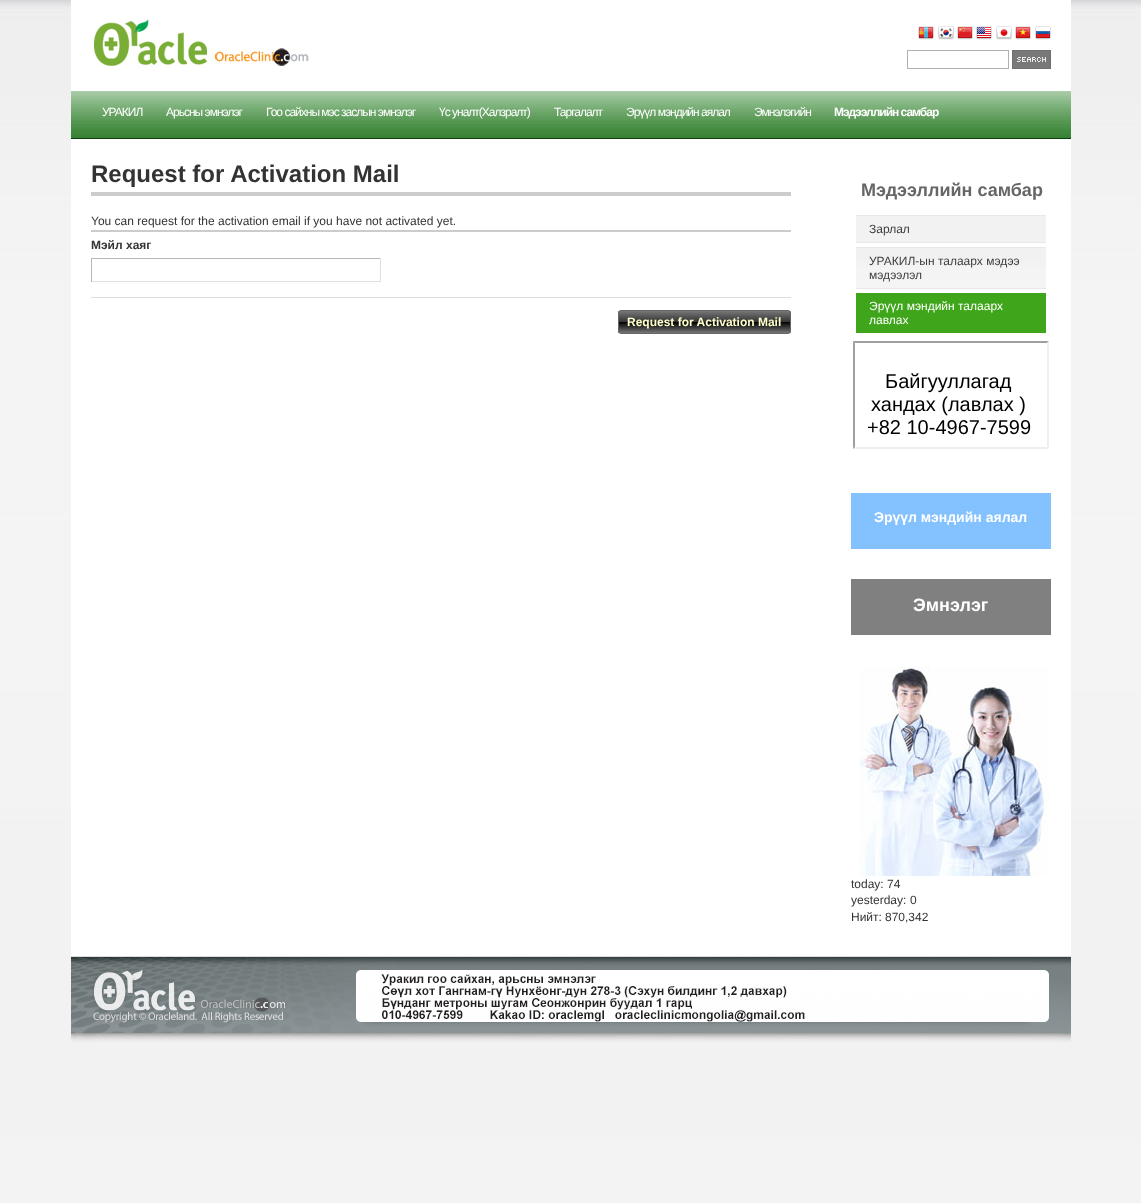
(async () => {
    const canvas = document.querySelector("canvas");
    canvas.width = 1141;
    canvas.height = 1203;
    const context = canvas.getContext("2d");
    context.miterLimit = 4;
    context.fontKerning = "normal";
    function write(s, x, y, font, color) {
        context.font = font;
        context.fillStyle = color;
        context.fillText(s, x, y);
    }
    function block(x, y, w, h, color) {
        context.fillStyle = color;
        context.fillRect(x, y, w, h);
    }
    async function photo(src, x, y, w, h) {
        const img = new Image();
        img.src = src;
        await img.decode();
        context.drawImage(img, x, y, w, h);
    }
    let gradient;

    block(0, 0, 1141, 1203, "rgb(255, 255, 255)");
    await photo("media/1.png", 0, 0, 1141, 1203);
    block(71, 0, 1000, 956, "rgb(255, 255, 255)");
    await photo("media/2.png", 71, 91, 1000, 48);
    await photo("media/3.png", 94, 19, 215, 48);
    await photo("media/4.png", 918, 26, 16, 14);
    await photo("media/5.png", 938, 26, 16, 14);
    await photo("media/6.png", 957, 26, 16, 14);
    await photo("media/7.png", 976, 26, 16, 14);
    await photo("media/8.png", 996, 26, 16, 14);
    await photo("media/9.png", 1015, 26, 16, 14);
    await photo("media/10.png", 1035, 26, 16, 14);
    context.strokeStyle = "rgb(176, 176, 175)";
    context.strokeRect(907.5, 50.5, 101, 18);
    await photo("media/11.png", 1012, 50, 39, 19);
    context.letterSpacing = "-1px";
    write("УРАКИЛ", 102, 116, "12px Liberation Sans", "rgb(255, 255, 255)");
    write("Арьсны эмнэлэг", 166, 116, "12px Liberation Sans", "rgb(255, 255, 255)");
    write("Гоо сайхны мэс заслын эмнэлэг", 266, 116, "12px Liberation Sans", "rgb(255, 255, 255)");
    write("Үс уналт(Халзралт)", 439, 116, "12px Liberation Sans", "rgb(255, 255, 255)");
    write("Таргалалт", 554, 116, "12px Liberation Sans", "rgb(255, 255, 255)");
    write("Эрүүл мэндийн аялал", 626, 116, "12px Liberation Sans", "rgb(255, 255, 255)");
    write("Эмнэлэгийн", 754, 116, "12px Liberation Sans", "rgb(255, 255, 255)");
    write("Мэдээллийн самбар", 834, 116, "bold 12px Liberation Sans", "rgb(255, 255, 255)");
    block(71, 956, 1000, 1, "rgb(221, 221, 221)");
    block(91, 192, 700, 4, "rgb(204, 204, 204)");
    context.letterSpacing = "0px";
    write("Request for Activation Mail", 91, 182, "bold 24px Liberation Sans", "rgb(51, 51, 51)");
    write("You can request for the activation email if you have not activated yet.", 91, 225, "12px Liberation Sans", "rgb(51, 51, 51)");
    block(91, 230, 700, 2, "rgb(204, 204, 204)");
    block(91, 297, 700, 1, "rgb(221, 221, 221)");
    write("Мэйл хаяг", 91, 249, "bold 12px Liberation Sans", "rgb(51, 51, 51)");
    block(91, 258, 290, 1, "rgb(183, 183, 183)");
    block(380, 258, 1, 24, "rgb(225, 225, 225)");
    block(91, 281, 290, 1, "rgb(225, 225, 225)");
    block(91, 258, 1, 24, "rgb(183, 183, 183)");
    context.save();
    context.beginPath();
    context.roundRect(618, 310, 173, 24, 3);
    context.clip();
    gradient = context.createLinearGradient(619, 311, 619, 333);
    gradient.addColorStop(0, "rgb(119, 119, 119)");
    gradient.addColorStop(0.5, "rgb(51, 51, 51)");
    gradient.addColorStop(0.5, "rgb(0, 0, 0)");
    gradient.addColorStop(1, "rgb(119, 119, 119)");
    context.fillStyle = gradient;
    context.fillRect(618, 311, 173, 22);
    context.restore();
    context.beginPath();
    context.roundRect(618.5, 310.5, 172, 23, 2.5);
    context.strokeStyle = "rgb(102, 102, 102)";
    context.stroke();
    write("Request for Activation Mail", 627, 326, "bold 12px Liberation Sans", "rgb(255, 255, 204)");
    write("Мэдээллийн самбар", 861, 196, "bold 18px Liberation Sans", "rgb(102, 102, 102)");
    block(856, 216, 190, 26, "rgb(242, 242, 242)");
    block(856, 215, 190, 1, "rgb(232, 232, 232)");
    block(856, 242, 190, 1, "rgb(232, 232, 232)");
    write("Зарлал", 869, 233, "12px Liberation Sans", "rgb(62, 62, 62)");
    await photo("media/12.png", 856, 248, 190, 40);
    block(856, 247, 190, 1, "rgb(232, 232, 232)");
    block(856, 288, 190, 1, "rgb(232, 232, 232)");
    write("УРАКИЛ-ын талаарх мэдээ", 869, 265, "12px Liberation Sans", "rgb(62, 62, 62)");
    write("мэдээлэл", 869, 279, "12px Liberation Sans", "rgb(62, 62, 62)");
    block(856, 293, 190, 40, "rgb(63, 166, 27)");
    write("Эрүүл мэндийн талаарх", 869, 310, "12px Liberation Sans", "rgb(255, 255, 255)");
    write("лавлах", 869, 324, "12px Liberation Sans", "rgb(255, 255, 255)");
    context.fillStyle = "rgb(159, 159, 159)";
    context.beginPath();
    context.moveTo(853, 341);
    context.lineTo(1049, 341);
    context.lineTo(1047, 343);
    context.lineTo(855, 343);
    context.closePath();
    context.fill();
    context.fillStyle = "rgb(239, 239, 239)";
    context.beginPath();
    context.moveTo(1049, 341);
    context.lineTo(1049, 449);
    context.lineTo(1047, 447);
    context.lineTo(1047, 343);
    context.closePath();
    context.fill();
    context.beginPath();
    context.moveTo(1049, 449);
    context.lineTo(853, 449);
    context.lineTo(855, 447);
    context.lineTo(1047, 447);
    context.closePath();
    context.fill();
    context.fillStyle = "rgb(159, 159, 159)";
    context.beginPath();
    context.moveTo(853, 449);
    context.lineTo(853, 341);
    context.lineTo(855, 343);
    context.lineTo(855, 447);
    context.closePath();
    context.fill();
    write("Байгууллагад", 885, 388, "20px Liberation Sans", "rgb(0, 0, 0)");
    write("хандах (лавлах )", 871, 411, "20px Liberation Sans", "rgb(0, 0, 0)");
    write("+82 10-4967-7599", 867, 434, "20px Liberation Sans", "rgb(0, 0, 0)");
    block(851, 493, 200, 56, "rgb(132, 193, 255)");
    write("Эрүүл мэндийн аялал", 874, 522, "bold 14px Liberation Sans", "rgb(255, 255, 255)");
    block(851, 579, 200, 56, "rgb(128, 128, 128)");
    write("Эмнэлэг", 913, 611, "bold 18px Liberation Sans", "rgb(255, 255, 255)");
    await photo("media/13.png", 859, 667, 190, 209);
    write("today:", 851, 888, "12px Liberation Sans", "rgb(51, 51, 51)");
    write("74", 887, 888, "12px Liberation Sans", "rgb(51, 51, 51)");
    write("yesterday:", 851, 904, "12px Liberation Sans", "rgb(51, 51, 51)");
    write("0", 910, 904, "12px Liberation Sans", "rgb(51, 51, 51)");
    write("Нийт:", 851, 921, "12px Liberation Sans", "rgb(51, 51, 51)");
    write("870,342", 885, 921, "12px Liberation Sans", "rgb(51, 51, 51)");
    await photo("media/14.png", 71, 957, 1000, 85);
})();
